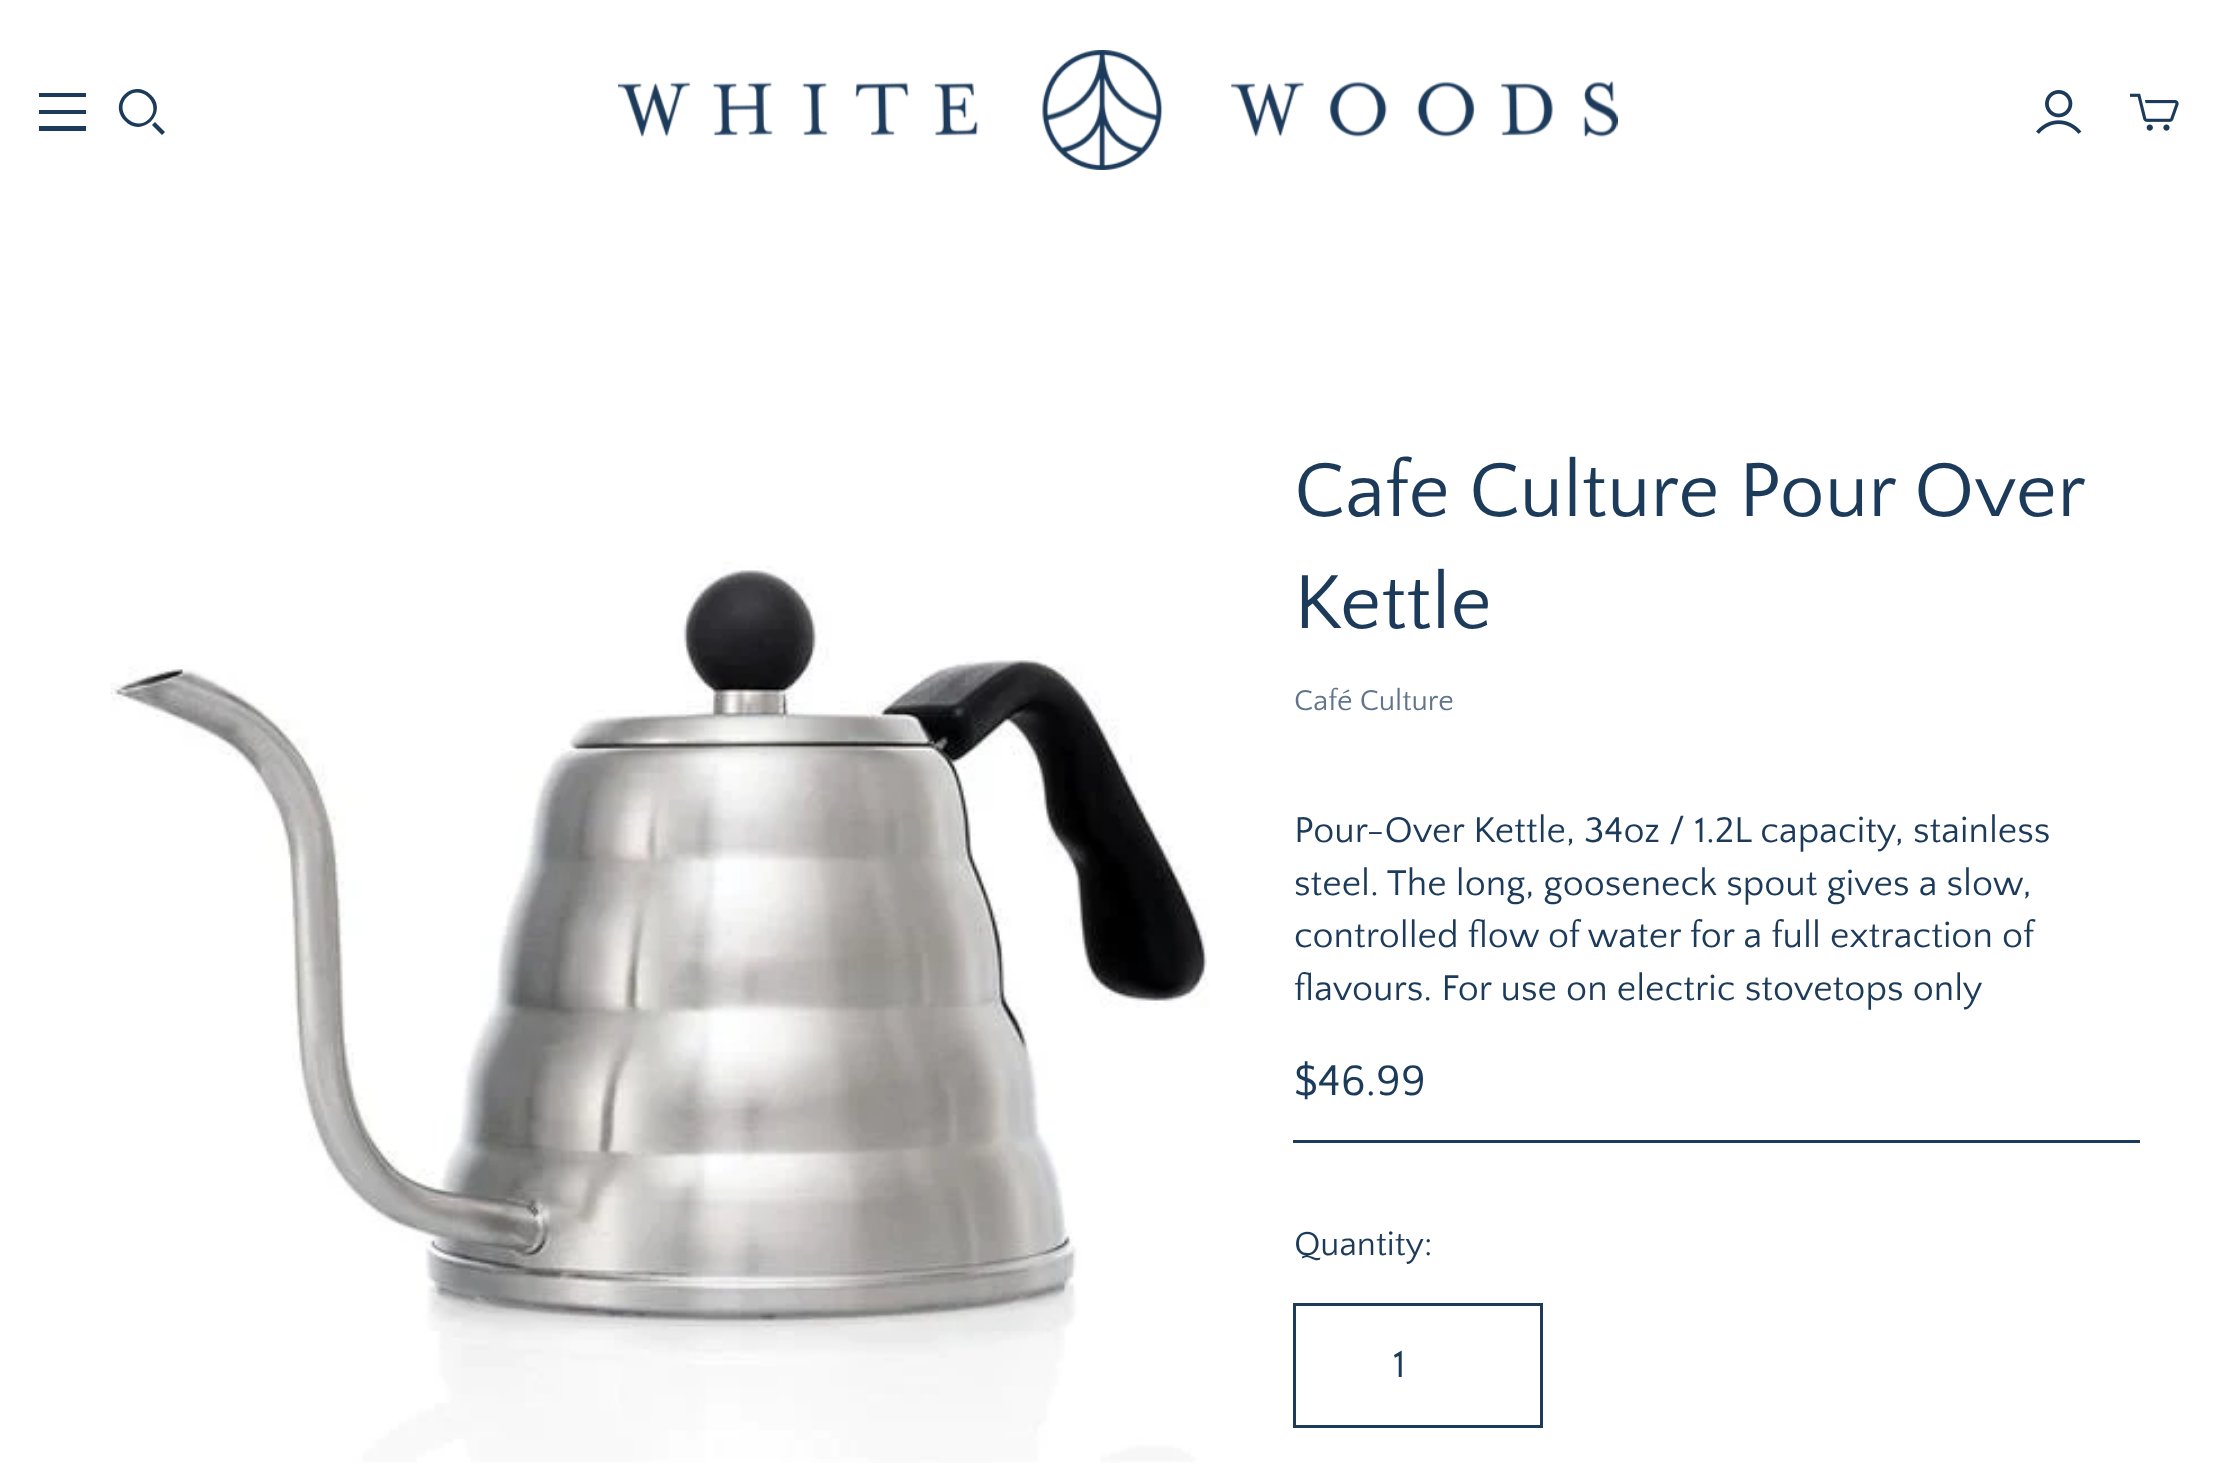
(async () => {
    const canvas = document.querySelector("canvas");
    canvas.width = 2231;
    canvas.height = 1472;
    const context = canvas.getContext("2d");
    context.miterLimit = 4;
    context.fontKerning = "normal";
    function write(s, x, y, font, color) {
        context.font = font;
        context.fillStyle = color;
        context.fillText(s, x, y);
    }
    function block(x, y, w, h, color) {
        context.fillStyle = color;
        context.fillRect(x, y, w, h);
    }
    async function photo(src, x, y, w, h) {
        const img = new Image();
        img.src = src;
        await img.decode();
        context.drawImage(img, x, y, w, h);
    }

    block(0, 0, 2231, 1472, "rgb(255, 255, 255)");
    await photo("media/1.png", 618, 50, 1000, 120);
    context.fillStyle = "rgb(28, 58, 90)";
    context.beginPath();
    context.moveTo(86, 97);
    context.lineTo(39, 97);
    context.lineTo(39, 93);
    context.lineTo(86, 93);
    context.closePath();
    context.moveTo(86, 114);
    context.lineTo(39, 114);
    context.lineTo(39, 110);
    context.lineTo(86, 110);
    context.closePath();
    context.moveTo(39, 131);
    context.lineTo(86, 131);
    context.lineTo(86, 126);
    context.lineTo(39, 126);
    context.closePath();
    context.fill("evenodd");
    context.beginPath();
    context.moveTo(127, 97);
    context.bezierCurveTo(113, 111, 135, 133, 149, 119);
    context.bezierCurveTo(163, 105, 141, 83, 127, 97);
    context.closePath();
    context.moveTo(125, 121);
    context.bezierCurveTo(107, 103, 133, 77, 151, 95);
    context.bezierCurveTo(169, 112, 142, 139, 125, 121);
    context.closePath();
    context.moveTo(162, 135);
    context.lineTo(152, 125);
    context.lineTo(155, 122);
    context.lineTo(165, 132);
    context.closePath();
    context.fill("evenodd");
    await photo("media/2.png", 2036, 90, 46, 44);
    await photo("media/3.png", 2130, 93, 49, 38);
    await photo("media/4.png", 110, 562, 1099, 901);
    context.wordSpacing = "-0.5px";
    write("Cafe Culture Pour Over", 1294, 516, "80px Quattrocento Sans", "rgb(28, 58, 90)");
    context.wordSpacing = "0px";
    write("Kettle", 1294, 628, "80px Quattrocento Sans", "rgb(28, 58, 90)");
    write("Café Culture", 1294, 710, "30px Quattrocento Sans", "rgb(96, 117, 140)");
    write("Pour-Over Kettle, 34oz / 1.2L capacity, stainless", 1294, 842, "37.5px Quattrocento Sans", "rgb(28, 58, 90)");
    write("steel. The long, gooseneck spout gives a slow,", 1294, 895, "37.5px Quattrocento Sans", "rgb(28, 58, 90)");
    write("controlled flow of water for a full extraction of", 1294, 947, "37.5px Quattrocento Sans", "rgb(28, 58, 90)");
    write("flavours. For use on electric stovetops only", 1294, 1000, "37.5px Quattrocento Sans", "rgb(28, 58, 90)");
    block(1293, 1140, 847, 3, "rgb(28, 58, 90)");
    write("$46.99", 1294, 1095, "45px Quattrocento Sans", "rgb(28, 58, 90)");
    write("Quantity:", 1294, 1255, "35px Quattrocento Sans", "rgb(28, 58, 90)");
    context.strokeStyle = "rgb(28, 58, 90)";
    context.lineWidth = 3;
    context.strokeRect(1294.5, 1304.5, 247, 122);
    write("1", 1393, 1377, "40px Quattrocento Sans", "rgb(28, 58, 90)");
})();
